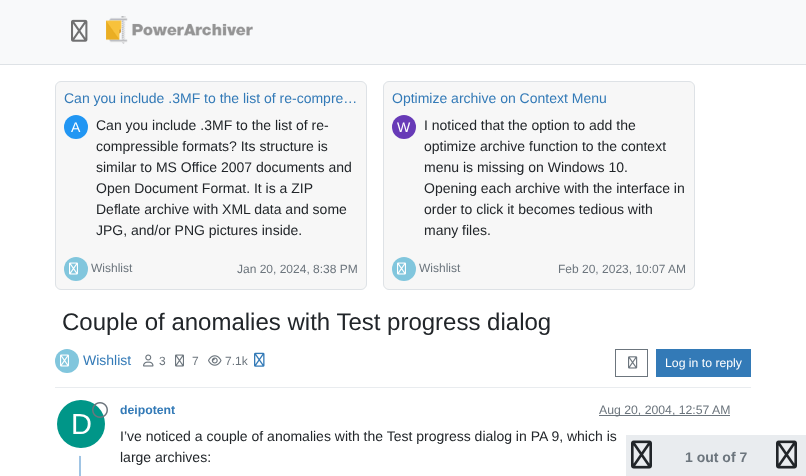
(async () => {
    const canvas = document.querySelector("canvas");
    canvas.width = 806;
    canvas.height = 476;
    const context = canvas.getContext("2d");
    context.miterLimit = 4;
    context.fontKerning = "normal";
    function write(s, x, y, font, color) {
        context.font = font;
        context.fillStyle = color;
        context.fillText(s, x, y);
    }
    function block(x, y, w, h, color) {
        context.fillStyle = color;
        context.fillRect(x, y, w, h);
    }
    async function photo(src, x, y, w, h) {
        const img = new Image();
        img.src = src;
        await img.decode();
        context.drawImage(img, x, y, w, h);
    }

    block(0, 0, 806, 476, "rgb(255, 255, 255)");
    block(0, 0, 806, 64, "rgb(248, 249, 250)");
    block(0, 64, 806, 1, "rgb(222, 226, 230)");
    await photo("media/1.png", 71, 19, 17, 23);
    await photo("media/2.png", 106, 16, 147, 28);
    context.fillStyle = "rgb(247, 247, 247)";
    context.beginPath();
    context.roundRect(55.5, 81.5, 311, 208, 5.5);
    context.fill();
    context.strokeStyle = "rgb(222, 226, 230)";
    context.stroke();
    write("Can you include .3MF to the list of re-compre…", 64, 103, "14px Liberation Sans", "rgb(51, 122, 183)");
    context.fillStyle = "rgb(33, 150, 243)";
    context.beginPath();
    context.arc(76, 127, 12, 0, Math.PI * 2);
    context.fill();
    write("A", 71, 132, "14px Liberation Sans", "rgb(255, 255, 255)");
    write("Can you include .3MF to the list of re-", 96, 130, "14px Liberation Sans", "rgb(33, 37, 41)");
    write("compressible formats? Its structure is", 96, 151, "14px Liberation Sans", "rgb(33, 37, 41)");
    write("similar to MS Office 2007 documents and", 96, 172, "14px Liberation Sans", "rgb(33, 37, 41)");
    write("Open Document Format. It is a ZIP", 96, 193, "14px Liberation Sans", "rgb(33, 37, 41)");
    write("Deflate archive with XML data and some", 96, 214, "14px Liberation Sans", "rgb(33, 37, 41)");
    write("JPG, and/or PNG pictures inside.", 96, 235, "14px Liberation Sans", "rgb(33, 37, 41)");
    context.fillStyle = "rgb(129, 198, 221)";
    context.beginPath();
    context.arc(76, 269, 12, 0, Math.PI * 2);
    context.fill();
    await photo("media/3.png", 69, 262, 9, 13);
    write("Wishlist", 91, 272, "12px Liberation Sans", "rgb(108, 117, 125)");
    write("Jan 20, 2024, 8:38 PM", 237, 273, "12px Liberation Sans", "rgb(108, 117, 125)");
    context.fillStyle = "rgb(247, 247, 247)";
    context.beginPath();
    context.roundRect(383.5, 81.5, 311, 208, 5.5);
    context.fill();
    context.stroke();
    write("Optimize archive on Context Menu", 392, 103, "14px Liberation Sans", "rgb(51, 122, 183)");
    context.fillStyle = "rgb(103, 58, 183)";
    context.beginPath();
    context.arc(404, 127, 12, 0, Math.PI * 2);
    context.fill();
    write("W", 397, 132, "14px Liberation Sans", "rgb(255, 255, 255)");
    write("I noticed that the option to add the", 424, 130, "14px Liberation Sans", "rgb(33, 37, 41)");
    write("optimize archive function to the context", 424, 151, "14px Liberation Sans", "rgb(33, 37, 41)");
    write("menu is missing on Windows 10.", 424, 172, "14px Liberation Sans", "rgb(33, 37, 41)");
    write("Opening each archive with the interface in", 424, 193, "14px Liberation Sans", "rgb(33, 37, 41)");
    write("order to click it becomes tedious with", 424, 214, "14px Liberation Sans", "rgb(33, 37, 41)");
    write("many files.", 424, 235, "14px Liberation Sans", "rgb(33, 37, 41)");
    context.fillStyle = "rgb(129, 198, 221)";
    context.beginPath();
    context.arc(404, 269, 12, 0, Math.PI * 2);
    context.fill();
    await photo("media/3.png", 397, 262, 9, 13);
    write("Wishlist", 419, 272, "12px Liberation Sans", "rgb(108, 117, 125)");
    write("Feb 20, 2023, 10:07 AM", 558, 273, "12px Liberation Sans", "rgb(108, 117, 125)");
    write("Couple of anomalies with Test progress dialog", 62, 330, "24px Liberation Sans", "rgb(33, 37, 41)");
    block(55, 387, 696, 1, "rgb(233, 236, 239)");
    context.fillStyle = "rgb(129, 198, 221)";
    context.beginPath();
    context.arc(67, 361, 12, 0, Math.PI * 2);
    context.fill();
    await photo("media/3.png", 60, 354, 9, 13);
    write("Wishlist", 83, 365, "14px Liberation Sans", "rgb(51, 122, 183)");
    await photo("media/4.png", 143, 354, 11, 13);
    write("3", 159, 365, "12px Liberation Sans", "rgb(108, 117, 125)");
    await photo("media/5.png", 175, 354, 9, 13);
    write("7", 192, 365, "12px Liberation Sans", "rgb(108, 117, 125)");
    await photo("media/6.png", 208, 355, 14, 11);
    write("7.1k", 225, 365, "12px Liberation Sans", "rgb(108, 117, 125)");
    await photo("media/7.png", 254, 352, 11, 15);
    context.strokeStyle = "rgb(108, 117, 125)";
    context.strokeRect(615.5, 349.5, 32, 27);
    await photo("media/8.png", 628, 356, 10, 13);
    block(656, 349, 95, 28, "rgb(51, 122, 183)");
    write("Log in to reply", 665, 367, "12.25px Liberation Sans", "rgb(255, 255, 255)");
    block(79, 398, 2, 78, "rgb(160, 196, 228)");
    write("deipotent", 120, 414, "bold 12.25px Liberation Sans", "rgb(51, 122, 183)");
    block(599, 415, 131, 1, "rgb(108, 117, 125)");
    write("Aug 20, 2004, 12:57 AM", 599, 414, "12.25px Liberation Sans", "rgb(108, 117, 125)");
    context.beginPath();
    context.arc(81, 424, 28, 0, Math.PI * 2);
    context.strokeStyle = "rgb(255, 255, 255)";
    context.lineWidth = 8;
    context.stroke();
    context.fillStyle = "rgb(0, 150, 136)";
    context.beginPath();
    context.arc(81, 424, 24, 0, Math.PI * 2);
    context.fill();
    await photo("media/9.png", 92, 402, 16, 16);
    write("D", 71, 434, "29px Liberation Sans", "rgb(255, 255, 255)");
    write("I’ve noticed a couple of anomalies with the Test progress dialog in PA 9, which is", 120, 441, "14px Liberation Sans", "rgb(33, 37, 41)");
    write("large archives:", 120, 462, "14px Liberation Sans", "rgb(33, 37, 41)");
    block(626, 435, 180, 41, "rgb(233, 236, 239)");
    await photo("media/10.png", 631, 440, 21, 29);
    write("1 out of 7", 685, 462, "bold 14px Liberation Sans", "rgb(108, 117, 125)");
    await photo("media/10.png", 776, 440, 21, 29);
})();
